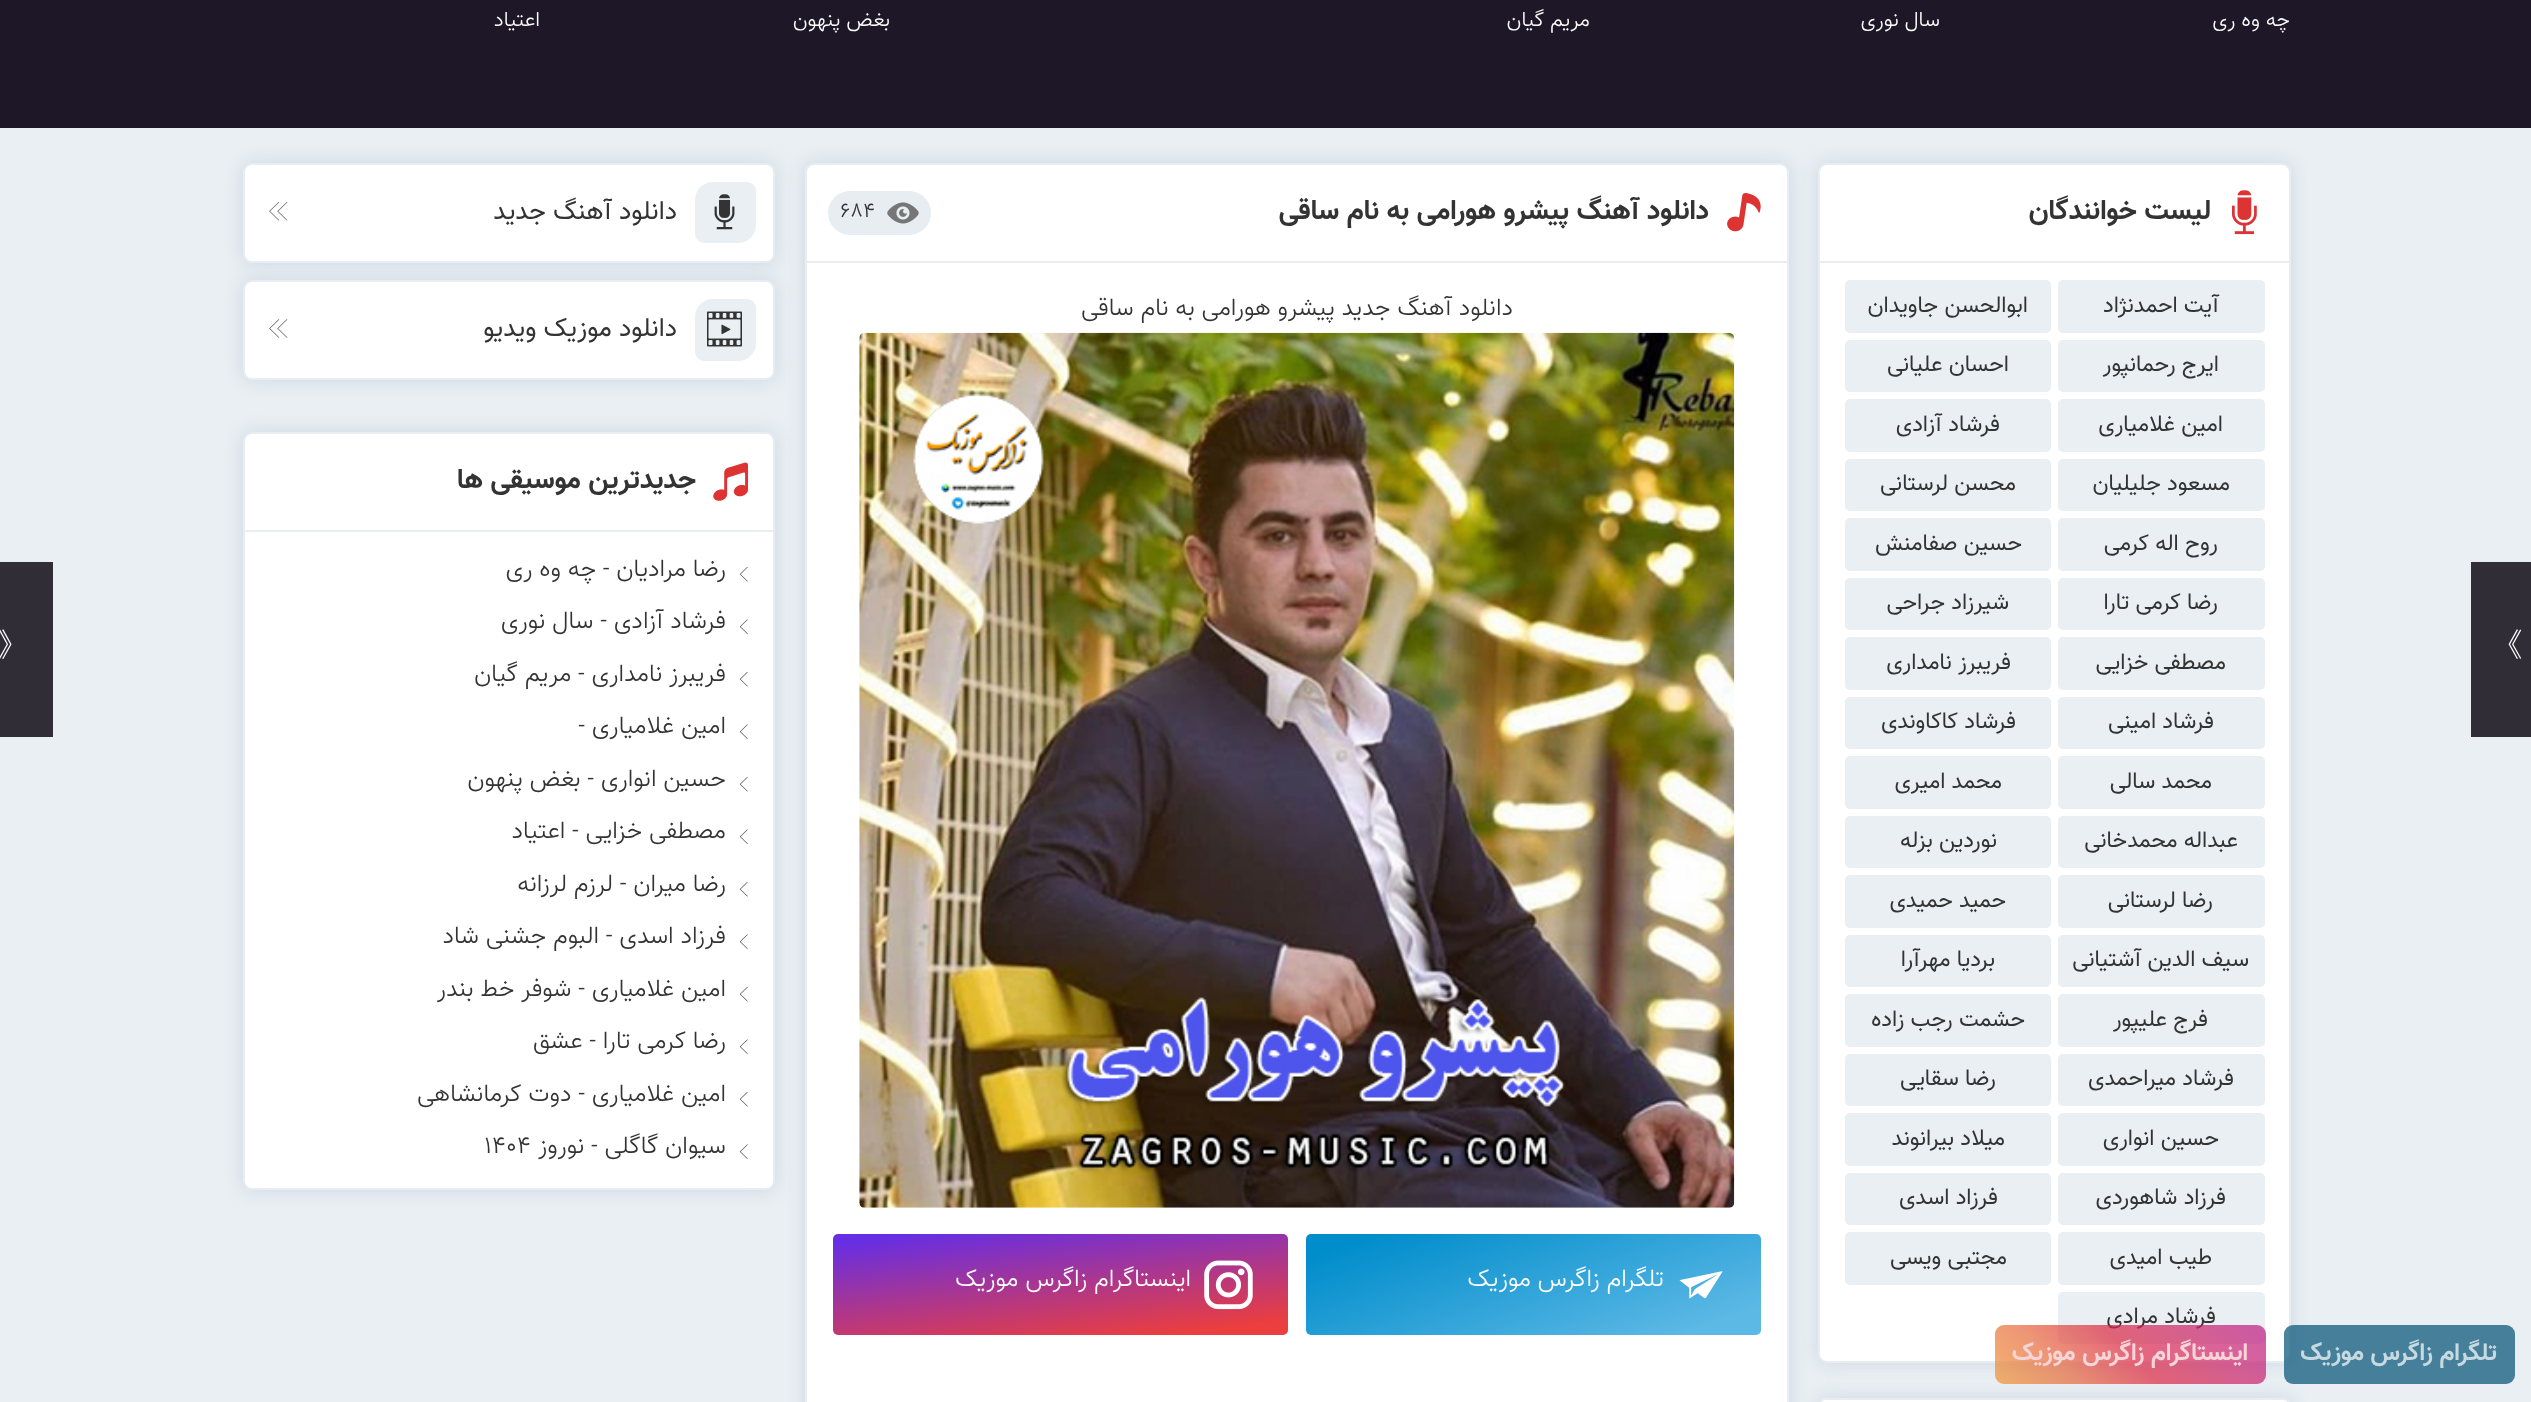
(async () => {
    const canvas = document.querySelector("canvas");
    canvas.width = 2531;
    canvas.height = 1402;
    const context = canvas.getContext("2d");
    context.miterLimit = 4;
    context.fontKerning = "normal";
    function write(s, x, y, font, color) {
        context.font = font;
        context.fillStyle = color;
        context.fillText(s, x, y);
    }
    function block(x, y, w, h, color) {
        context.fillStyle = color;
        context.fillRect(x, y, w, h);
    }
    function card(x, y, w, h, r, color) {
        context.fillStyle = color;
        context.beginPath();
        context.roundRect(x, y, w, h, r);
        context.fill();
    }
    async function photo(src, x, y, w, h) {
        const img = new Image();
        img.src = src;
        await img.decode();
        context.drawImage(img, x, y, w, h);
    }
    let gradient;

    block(0, 0, 2531, 1402, "rgb(233, 239, 242)");
    block(0, 0, 2531, 128, "rgb(29, 23, 39)");
    context.direction = "rtl";
    write("چه وه ری", 2290, 26, "300 21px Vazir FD", "rgb(255, 255, 255)");
    write("سال نوری", 1940, 26, "300 21px Vazir FD", "rgb(255, 255, 255)");
    write("مریم گیان", 1590, 26, "300 21px Vazir FD", "rgb(255, 255, 255)");
    write("بغض پنهون", 890, 26, "300 21px Vazir FD", "rgb(255, 255, 255)");
    write("اعتیاد", 540, 26, "300 21px Vazir FD", "rgb(255, 255, 255)");
    block(2471, 562, 60, 175, "rgb(49, 45, 54)");
    context.direction = "ltr";
    write("《", 2490, 656, "500 33px WenQuanYi Zen Hei", "rgb(255, 255, 255)");
    context.fillStyle = "rgba(197, 208, 225, 0.8)";
    context.filter = "blur(9px)";
    context.beginPath();
    context.roundRect(805, 163, 984, 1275, 9);
    context.fill();
    context.filter = "none";
    context.fillStyle = "rgb(255, 255, 255)";
    context.beginPath();
    context.roundRect(806, 164, 982, 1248, 8);
    context.fill();
    context.strokeStyle = "rgb(231, 237, 240)";
    context.lineWidth = 2;
    context.stroke();
    block(807, 261, 980, 2, "rgb(231, 237, 240)");
    await photo("media/1.png", 1727, 193, 34, 39);
    context.direction = "rtl";
    write("دانلود آهنگ پیشرو هورامی به نام ساقی", 1709, 219, "bold 28px Vazir FD", "rgb(51, 51, 51)");
    card(828, 191, 103, 44, 22, "rgb(231, 237, 240)");
    await photo("media/2.png", 887, 202, 32, 22);
    context.direction = "ltr";
    write("684", 840, 217, "300 21px Vazir FD", "rgb(51, 51, 51)");
    context.direction = "rtl";
    write("دانلود آهنگ جدید پیشرو هورامی به نام ساقی", 1513, 315, "300 24.5px Vazir FD", "rgb(51, 51, 51)");
    await photo("media/3.png", 859, 332, 876, 876);
    gradient = context.createLinearGradient(1575, 1401, 1491, 1168);
    gradient.addColorStop(0.11, "rgb(92, 184, 229)");
    gradient.addColorStop(0.91, "rgb(0, 141, 203)");
    context.fillStyle = gradient;
    context.beginPath();
    context.roundRect(1306, 1234, 455, 101, 5);
    context.fill();
    await photo("media/4.png", 1679, 1271, 44, 28);
    write("تلگرام زاگرس موزیک", 1664, 1286, "300 24.5px Vazir FD", "rgb(255, 255, 255)");
    gradient = context.createLinearGradient(1070, 1363, 1051, 1206);
    gradient.addColorStop(0.1, "rgb(235, 62, 62)");
    gradient.addColorStop(0.94, "rgb(101, 46, 229)");
    context.fillStyle = gradient;
    context.beginPath();
    context.roundRect(833, 1234, 455, 101, 5);
    context.fill();
    await photo("media/5.png", 1204, 1260, 49, 50);
    write("اینستاگرام زاگرس موزیک", 1191, 1286, "300 24.5px Vazir FD", "rgb(255, 255, 255)");
    block(0, 562, 53, 175, "rgb(49, 45, 54)");
    context.direction = "ltr";
    write("》", -3, 656, "500 33px WenQuanYi Zen Hei", "rgb(255, 255, 255)");
    context.fillStyle = "rgba(197, 208, 225, 0.8)";
    context.filter = "blur(9px)";
    context.beginPath();
    context.roundRect(1818, 163, 473, 1200, 9);
    context.fill();
    context.filter = "none";
    context.fillStyle = "rgb(255, 255, 255)";
    context.beginPath();
    context.roundRect(1819, 164, 471, 1198, 8);
    context.fill();
    context.stroke();
    block(1820, 261, 469, 2, "rgb(231, 237, 240)");
    await photo("media/6.png", 2232, 190, 25, 45);
    context.direction = "rtl";
    write("لیست خوانندگان", 2211, 219, "bold 28px Vazir FD", "rgb(51, 51, 51)");
    card(2058, 280, 207, 53, 5, "rgb(233, 239, 242)");
    write("آیت احمدنژاد", 2219, 312, "22.75px Vazir FD", "rgb(51, 51, 51)");
    card(1845, 280, 206, 53, 5, "rgb(233, 239, 242)");
    write("ابوالحسن جاویدان", 2028, 312, "22.75px Vazir FD", "rgb(51, 51, 51)");
    card(2058, 340, 207, 52, 5, "rgb(233, 239, 242)");
    write("ایرج رحمانپور", 2219, 371, "22.75px Vazir FD", "rgb(51, 51, 51)");
    card(1845, 340, 206, 52, 5, "rgb(233, 239, 242)");
    write("احسان علیانی", 2009, 371, "22.75px Vazir FD", "rgb(51, 51, 51)");
    card(2058, 399, 207, 53, 5, "rgb(233, 239, 242)");
    write("امین غلامیاری", 2223, 431, "22.75px Vazir FD", "rgb(51, 51, 51)");
    card(1845, 399, 206, 53, 5, "rgb(233, 239, 242)");
    write("فرشاد آزادی", 2000, 431, "22.75px Vazir FD", "rgb(51, 51, 51)");
    card(2058, 459, 207, 52, 5, "rgb(233, 239, 242)");
    write("مسعود جلیلیان", 2230, 490, "22.75px Vazir FD", "rgb(51, 51, 51)");
    card(1845, 459, 206, 52, 5, "rgb(233, 239, 242)");
    write("محسن لرستانی", 2016, 490, "22.75px Vazir FD", "rgb(51, 51, 51)");
    card(2058, 518, 207, 53, 5, "rgb(233, 239, 242)");
    write("روح اله کرمی", 2218, 550, "22.75px Vazir FD", "rgb(51, 51, 51)");
    card(1845, 518, 206, 53, 5, "rgb(233, 239, 242)");
    write("حسین صفامنش", 2022, 550, "22.75px Vazir FD", "rgb(51, 51, 51)");
    card(2058, 578, 207, 52, 5, "rgb(233, 239, 242)");
    write("رضا کرمی تارا", 2218, 609, "22.75px Vazir FD", "rgb(51, 51, 51)");
    card(1845, 578, 206, 52, 5, "rgb(233, 239, 242)");
    write("شیرزاد جراحی", 2009, 609, "22.75px Vazir FD", "rgb(51, 51, 51)");
    card(2058, 637, 207, 53, 5, "rgb(233, 239, 242)");
    write("مصطفی خزایی", 2226, 669, "22.75px Vazir FD", "rgb(51, 51, 51)");
    card(1845, 637, 206, 53, 5, "rgb(233, 239, 242)");
    write("فریبرز نامداری", 2011, 669, "22.75px Vazir FD", "rgb(51, 51, 51)");
    card(2058, 697, 207, 52, 5, "rgb(233, 239, 242)");
    write("فرشاد امینی", 2214, 728, "22.75px Vazir FD", "rgb(51, 51, 51)");
    card(1845, 697, 206, 52, 5, "rgb(233, 239, 242)");
    write("فرشاد کاکاوندی", 2016, 728, "22.75px Vazir FD", "rgb(51, 51, 51)");
    card(2058, 756, 207, 53, 5, "rgb(233, 239, 242)");
    write("محمد سالی", 2212, 788, "22.75px Vazir FD", "rgb(51, 51, 51)");
    card(1845, 756, 206, 53, 5, "rgb(233, 239, 242)");
    write("محمد امیری", 2002, 788, "22.75px Vazir FD", "rgb(51, 51, 51)");
    card(2058, 816, 207, 52, 5, "rgb(233, 239, 242)");
    write("عبداله محمدخانی", 2238, 847, "22.75px Vazir FD", "rgb(51, 51, 51)");
    card(1845, 816, 206, 52, 5, "rgb(233, 239, 242)");
    write("نوردین بزله", 1997, 847, "22.75px Vazir FD", "rgb(51, 51, 51)");
    card(2058, 875, 207, 53, 5, "rgb(233, 239, 242)");
    write("رضا لرستانی", 2213, 907, "22.75px Vazir FD", "rgb(51, 51, 51)");
    card(1845, 875, 206, 53, 5, "rgb(233, 239, 242)");
    write("حمید حمیدی", 2006, 907, "22.75px Vazir FD", "rgb(51, 51, 51)");
    card(2058, 935, 207, 52, 5, "rgb(233, 239, 242)");
    write("سیف الدین آشتیانی", 2249, 966, "22.75px Vazir FD", "rgb(51, 51, 51)");
    card(1845, 935, 206, 52, 5, "rgb(233, 239, 242)");
    write("بردیا مهرآرا", 1995, 966, "22.75px Vazir FD", "rgb(51, 51, 51)");
    card(2058, 994, 207, 53, 5, "rgb(233, 239, 242)");
    write("فرج علیپور", 2208, 1026, "22.75px Vazir FD", "rgb(51, 51, 51)");
    card(1845, 994, 206, 53, 5, "rgb(233, 239, 242)");
    write("حشمت رجب زاده", 2025, 1026, "22.75px Vazir FD", "rgb(51, 51, 51)");
    card(2058, 1054, 207, 52, 5, "rgb(233, 239, 242)");
    write("فرشاد میراحمدی", 2234, 1085, "22.75px Vazir FD", "rgb(51, 51, 51)");
    card(1845, 1054, 206, 52, 5, "rgb(233, 239, 242)");
    write("رضا سقایی", 1996, 1085, "22.75px Vazir FD", "rgb(51, 51, 51)");
    card(2058, 1113, 207, 53, 5, "rgb(233, 239, 242)");
    write("حسین انواری", 2219, 1145, "22.75px Vazir FD", "rgb(51, 51, 51)");
    card(1845, 1113, 206, 53, 5, "rgb(233, 239, 242)");
    write("میلاد بیرانوند", 2005, 1145, "22.75px Vazir FD", "rgb(51, 51, 51)");
    card(2058, 1173, 207, 52, 5, "rgb(233, 239, 242)");
    write("فرزاد شاهوردی", 2226, 1204, "22.75px Vazir FD", "rgb(51, 51, 51)");
    card(1845, 1173, 206, 52, 5, "rgb(233, 239, 242)");
    write("فرزاد اسدی", 1998, 1204, "22.75px Vazir FD", "rgb(51, 51, 51)");
    card(2058, 1232, 207, 53, 5, "rgb(233, 239, 242)");
    write("طیب امیدی", 2212, 1264, "22.75px Vazir FD", "rgb(51, 51, 51)");
    card(1845, 1232, 206, 53, 5, "rgb(233, 239, 242)");
    write("مجتبی ویسی", 2007, 1264, "22.75px Vazir FD", "rgb(51, 51, 51)");
    card(2058, 1292, 207, 52, 5, "rgb(233, 239, 242)");
    write("فرشاد مرادی", 2216, 1323, "22.75px Vazir FD", "rgb(51, 51, 51)");
    context.fillStyle = "rgba(197, 208, 225, 0.8)";
    context.filter = "blur(9px)";
    context.beginPath();
    context.roundRect(1818, 1398, 473, 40, 9);
    context.fill();
    context.filter = "none";
    context.fillStyle = "rgb(255, 255, 255)";
    context.beginPath();
    context.roundRect(1819, 1399, 471, 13, 8);
    context.fill();
    context.stroke();
    context.fillStyle = "rgba(197, 208, 225, 0.8)";
    context.filter = "blur(9px)";
    context.beginPath();
    context.roundRect(243, 163, 532, 100, 9);
    context.fill();
    context.filter = "none";
    context.fillStyle = "rgb(255, 255, 255)";
    context.beginPath();
    context.roundRect(244, 164, 530, 98, 8);
    context.fill();
    context.stroke();
    context.fillStyle = "rgb(233, 239, 242)";
    context.beginPath();
    context.roundRect(695, 182, 61, 61, [18, 9, 18, 9]);
    context.fill();
    await photo("media/7.png", 714, 194, 21, 36);
    write("دانلود آهنگ جدید", 677, 219, "26.25px Vazir FD", "rgb(51, 51, 51)");
    await photo("media/8.png", 269, 201, 19, 20);
    context.fillStyle = "rgba(197, 208, 225, 0.8)";
    context.filter = "blur(9px)";
    context.beginPath();
    context.roundRect(243, 280, 532, 100, 9);
    context.fill();
    context.filter = "none";
    context.fillStyle = "rgb(255, 255, 255)";
    context.beginPath();
    context.roundRect(244, 281, 530, 98, 8);
    context.fill();
    context.stroke();
    context.fillStyle = "rgb(233, 239, 242)";
    context.beginPath();
    context.roundRect(695, 299, 61, 62, [18, 9, 18, 9]);
    context.fill();
    await photo("media/9.png", 707, 311, 35, 36);
    write("دانلود موزیک ویدیو", 677, 336, "26.25px Vazir FD", "rgb(51, 51, 51)");
    await photo("media/10.png", 269, 319, 19, 19);
    context.fillStyle = "rgba(197, 208, 225, 0.8)";
    context.filter = "blur(9px)";
    context.beginPath();
    context.roundRect(243, 432, 532, 758, 9);
    context.fill();
    context.filter = "none";
    context.fillStyle = "rgb(255, 255, 255)";
    context.beginPath();
    context.roundRect(244, 433, 530, 756, 8);
    context.fill();
    context.stroke();
    block(245, 530, 529, 2, "rgb(231, 237, 240)");
    await photo("media/11.png", 713, 462, 36, 39);
    write("جدیدترین موسیقی ها", 696, 488, "bold 28px Vazir FD", "rgb(51, 51, 51)");
    await photo("media/12.png", 739, 566, 9, 16);
    write("رضا مرادیان - چه وه ری", 726, 576, "300 24.5px Vazir FD", "rgb(51, 51, 51)");
    await photo("media/13.png", 739, 619, 9, 15);
    write("فرشاد آزادی - سال نوری", 726, 628, "300 24.5px Vazir FD", "rgb(51, 51, 51)");
    await photo("media/12.png", 739, 671, 9, 16);
    write("فریبرز نامداری - مریم گیان", 726, 681, "300 24.5px Vazir FD", "rgb(51, 51, 51)");
    await photo("media/13.png", 739, 724, 9, 15);
    write("امین غلامیاری -", 726, 733, "300 24.5px Vazir FD", "rgb(51, 51, 51)");
    await photo("media/12.png", 739, 776, 9, 16);
    write("حسین انواری - بغض پنهون", 726, 786, "300 24.5px Vazir FD", "rgb(51, 51, 51)");
    await photo("media/13.png", 739, 829, 9, 15);
    write("مصطفی خزایی - اعتیاد", 726, 838, "300 24.5px Vazir FD", "rgb(51, 51, 51)");
    await photo("media/12.png", 739, 881, 9, 16);
    write("رضا میران - لرزم لرزانه", 726, 891, "300 24.5px Vazir FD", "rgb(51, 51, 51)");
    await photo("media/13.png", 739, 934, 9, 15);
    write("فرزاد اسدی - البوم جشنی شاد", 726, 943, "300 24.5px Vazir FD", "rgb(51, 51, 51)");
    await photo("media/12.png", 739, 986, 9, 16);
    write("امین غلامیاری - شوفر خط بندر", 726, 996, "300 24.5px Vazir FD", "rgb(51, 51, 51)");
    await photo("media/13.png", 739, 1039, 9, 15);
    write("رضا کرمی تارا - عشق", 726, 1048, "300 24.5px Vazir FD", "rgb(51, 51, 51)");
    await photo("media/12.png", 739, 1091, 9, 16);
    write("امین غلامیاری - دوت کرمانشاهی", 726, 1101, "300 24.5px Vazir FD", "rgb(51, 51, 51)");
    await photo("media/13.png", 739, 1144, 9, 15);
    write("سیوان گاگلی - نوروز", 726, 1153, "300 24.5px Vazir FD", "rgb(51, 51, 51)");
    context.direction = "ltr";
    write("1404", 484, 1153, "300 24.5px Vazir FD", "rgb(51, 51, 51)");
    card(2284, 1325, 231, 59, 9, "rgba(0, 80, 117, 0.7)");
    context.direction = "rtl";
    write("تلگرام زاگرس موزیک", 2497, 1360, "bold 24.5px Vazir FD", "rgb(199, 217, 225)");
    gradient = context.createLinearGradient(2048, 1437, 2213, 1272);
    gradient.addColorStop(0, "rgba(240, 148, 51, 0.7)");
    gradient.addColorStop(0.25, "rgba(230, 104, 60, 0.7)");
    gradient.addColorStop(0.5, "rgba(220, 39, 67, 0.7)");
    gradient.addColorStop(0.75, "rgba(204, 35, 102, 0.7)");
    gradient.addColorStop(1, "rgba(188, 24, 136, 0.7)");
    context.fillStyle = gradient;
    context.beginPath();
    context.roundRect(1995, 1325, 271, 59, 9);
    context.fill();
    write("اینستاگرام زاگرس موزیک", 2248, 1360, "bold 24.5px Vazir FD", "rgb(246, 213, 217)");
})();
